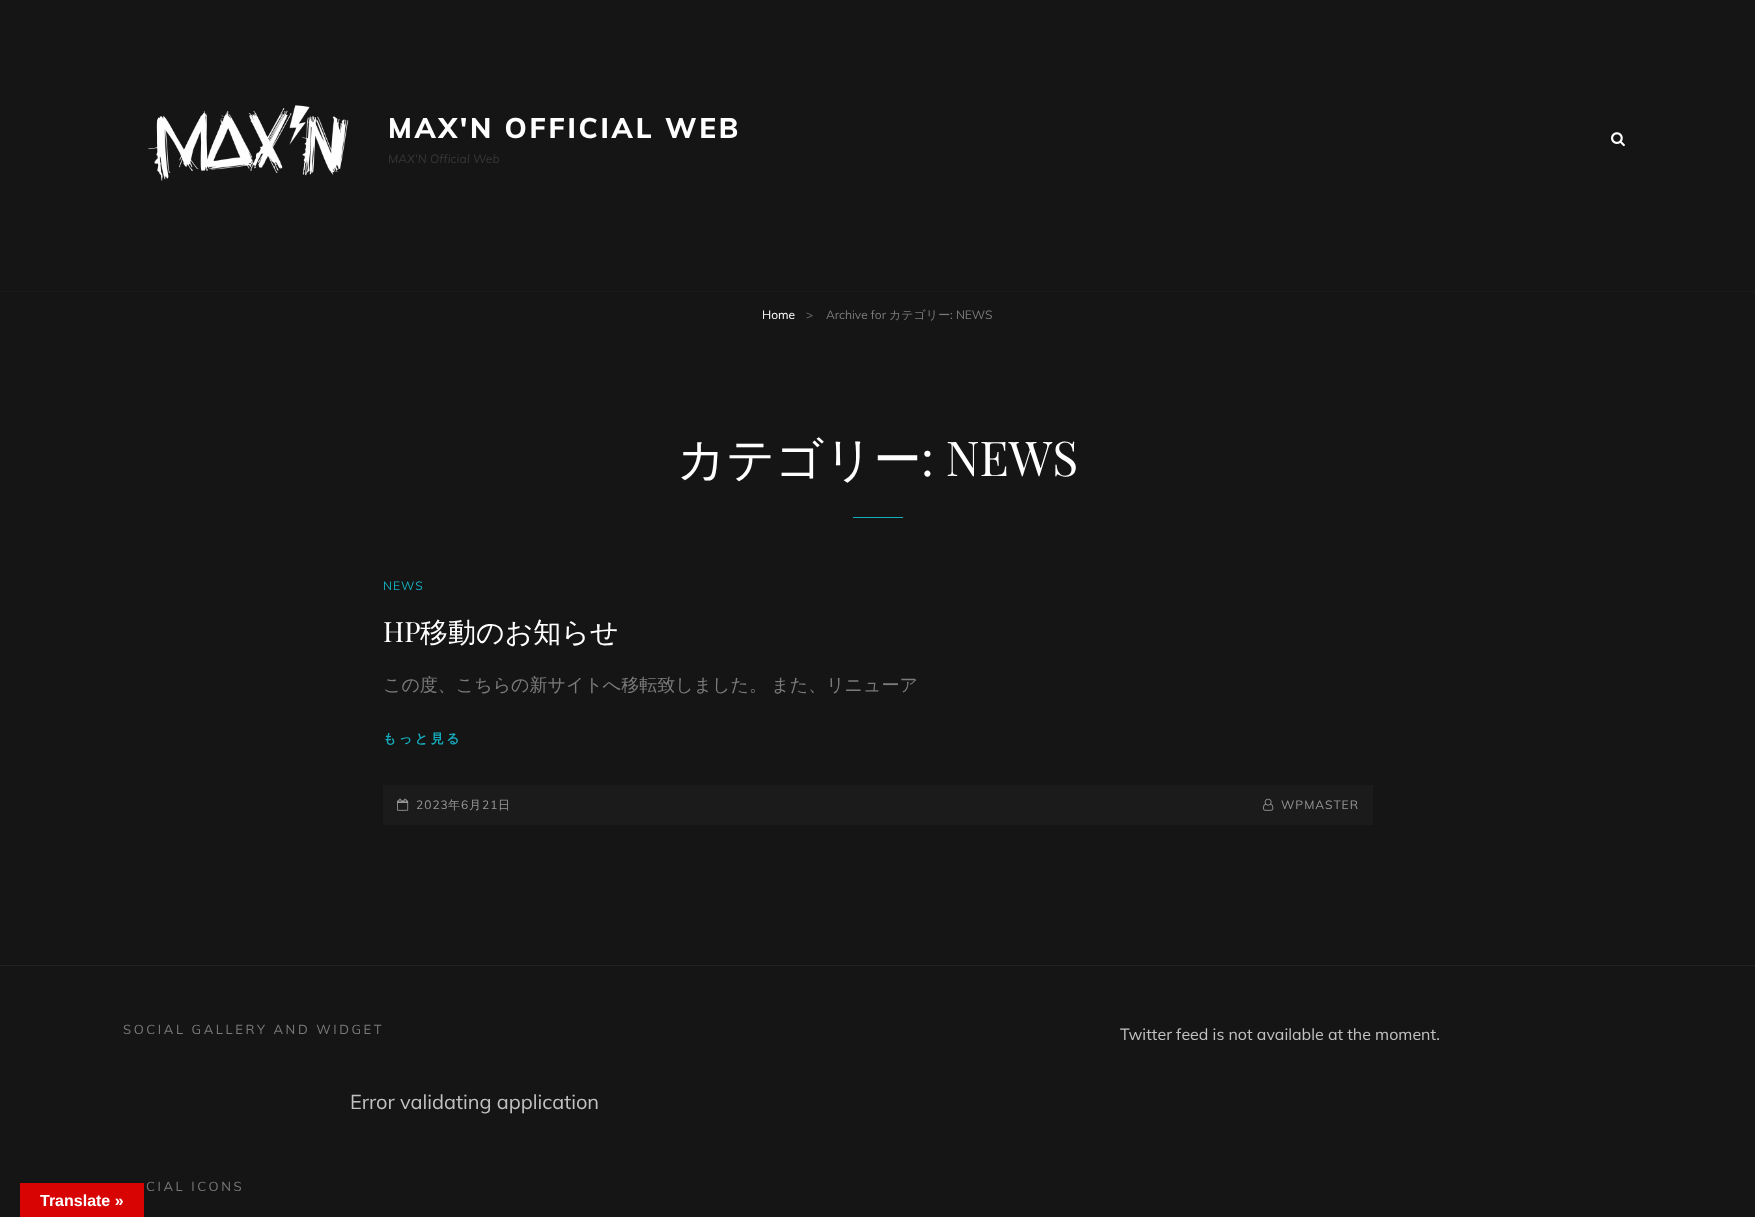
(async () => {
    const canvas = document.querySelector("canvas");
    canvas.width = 1755;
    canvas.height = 1217;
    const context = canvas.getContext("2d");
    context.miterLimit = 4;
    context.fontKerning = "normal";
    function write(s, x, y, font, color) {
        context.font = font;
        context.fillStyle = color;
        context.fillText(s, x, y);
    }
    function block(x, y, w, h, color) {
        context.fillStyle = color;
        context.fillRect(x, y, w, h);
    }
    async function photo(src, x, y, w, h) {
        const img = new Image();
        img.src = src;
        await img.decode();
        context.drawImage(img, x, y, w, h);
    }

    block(0, 0, 1755, 1217, "rgb(21, 21, 21)");
    block(0, 291, 1755, 1, "rgb(27, 27, 27)");
    await photo("media/1.png", 148, 105, 201, 76);
    context.letterSpacing = "2.75px";
    write("MAX'N OFFICIAL WEB", 388, 138, "800 28px Muli", "rgb(255, 255, 255)");
    context.letterSpacing = "0.1px";
    write("MAX'N Official Web", 388, 163, "italic 12px Muli", "rgb(55, 55, 55)");
    await photo("media/2.png", 1611, 132, 14, 15);
    context.letterSpacing = "0px";
    write("Home", 762, 319, "12px Muli", "rgb(255, 255, 255)");
    write(">", 806, 319, "12px Muli", "rgb(123, 123, 123)");
    write("Archive for", 826, 319, "12px Muli", "rgb(123, 123, 123)");
    write("カテゴリー", 889, 319, "500 12px WenQuanYi Zen Hei", "rgb(123, 123, 123)");
    write(": NEWS", 950, 319, "12px Muli", "rgb(123, 123, 123)");
    block(0, 965, 1755, 1, "rgb(34, 34, 34)");
    write("カテゴリー", 677, 476, "500 48px WenQuanYi Zen Hei", "rgb(255, 255, 255)");
    write(": NEWS", 921, 476, "48px Playfair Display", "rgb(255, 255, 255)");
    block(853, 517, 50, 1, "rgb(21, 174, 191)");
    context.letterSpacing = "1px";
    write("NEWS", 383, 590, "12px Muli", "rgb(21, 174, 191)");
    context.letterSpacing = "0px";
    write("HP", 383, 642, "28px Playfair Display", "rgb(255, 255, 255)");
    write("移動のお知らせ", 420, 642, "500 28px WenQuanYi Zen Hei", "rgb(255, 255, 255)");
    context.wordSpacing = "-1px";
    write("この度、こちらの新サイトへ移転致しました。 また、リニューア", 383, 691, "500 18px WenQuanYi Zen Hei", "rgb(123, 123, 123)");
    context.letterSpacing = "2.6px";
    context.wordSpacing = "0px";
    write("もっと見る", 383, 743, "bold 13px WenQuanYi Zen Hei", "rgb(21, 174, 191)");
    block(383, 785, 990, 40, "rgb(27, 27, 27)");
    await photo("media/3.png", 397, 798, 12, 13);
    context.letterSpacing = "1px";
    write("2023", 416, 809, "12px Muli", "rgb(151, 151, 151)");
    write("年", 448, 809, "500 12px WenQuanYi Zen Hei", "rgb(151, 151, 151)");
    write("6", 461, 809, "12px Muli", "rgb(151, 151, 151)");
    write("月", 469, 809, "500 12px WenQuanYi Zen Hei", "rgb(151, 151, 151)");
    write("21", 482, 809, "12px Muli", "rgb(151, 151, 151)");
    write("日", 498, 809, "500 12px WenQuanYi Zen Hei", "rgb(151, 151, 151)");
    await photo("media/4.png", 1263, 798, 11, 13);
    write("WPMASTER", 1281, 809, "12px Muli", "rgb(151, 151, 151)");
    context.letterSpacing = "2.6px";
    write("SOCIAL GALLERY AND WIDGET", 123, 1034, "13px Muli", "rgb(123, 123, 123)");
    context.letterSpacing = "0px";
    write("Error validating application", 350, 1109, "20px Muli", "rgb(193, 193, 193)");
    context.letterSpacing = "2.6px";
    write("CIAL ICONS", 146, 1191, "13px Muli", "rgb(123, 123, 123)");
    context.letterSpacing = "0px";
    write("Twitter feed is not available at the moment.", 1120, 1040, "16px Muli", "rgb(193, 193, 193)");
    block(20, 1183, 124, 34, "rgb(216, 4, 4)");
    write("Translate »", 40, 1206, "bold 16px Liberation Sans", "rgb(255, 255, 255)");
})();
